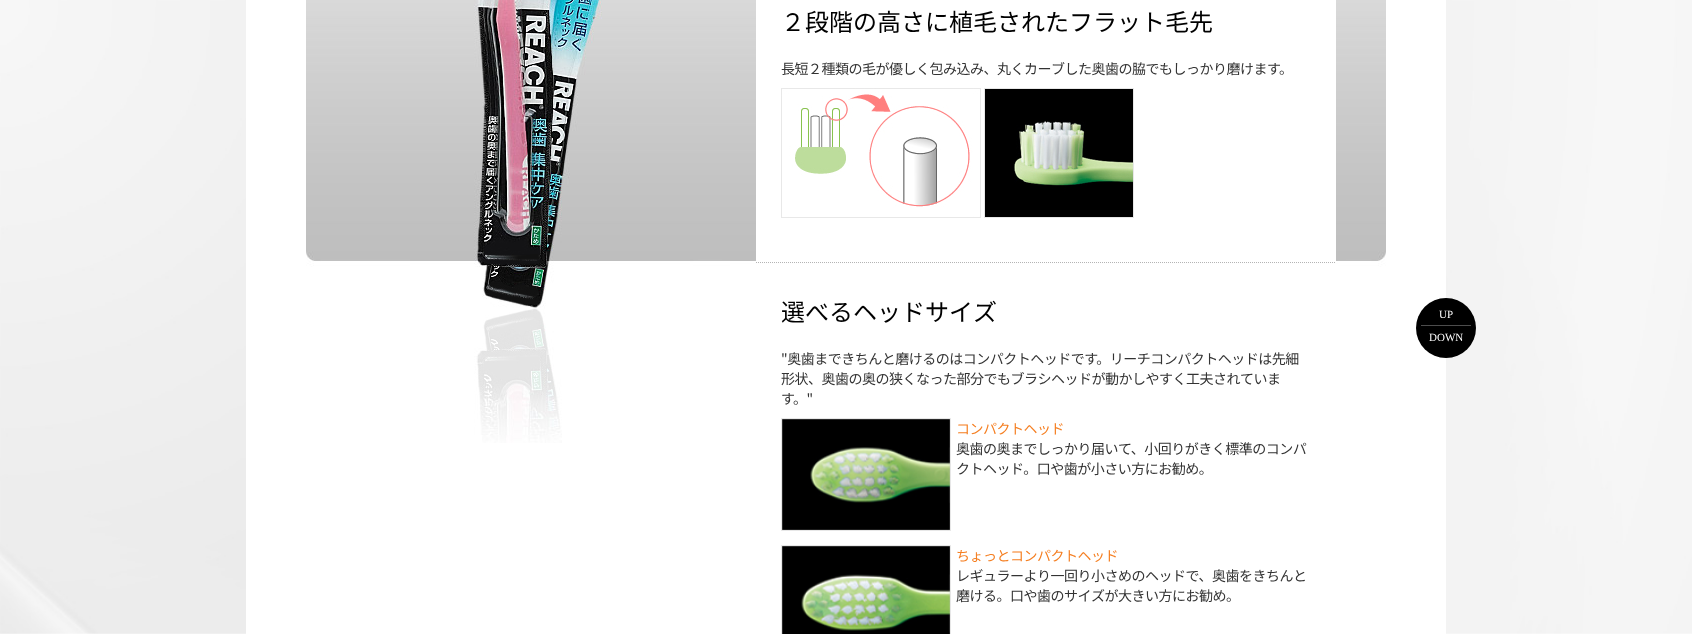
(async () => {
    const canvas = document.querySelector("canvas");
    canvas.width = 1692;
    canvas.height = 634;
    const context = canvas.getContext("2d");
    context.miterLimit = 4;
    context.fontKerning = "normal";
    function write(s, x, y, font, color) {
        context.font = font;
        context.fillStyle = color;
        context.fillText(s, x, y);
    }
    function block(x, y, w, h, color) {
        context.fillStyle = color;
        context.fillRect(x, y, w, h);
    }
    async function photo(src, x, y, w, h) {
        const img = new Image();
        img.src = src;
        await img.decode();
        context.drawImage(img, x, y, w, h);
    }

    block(0, 0, 1692, 634, "rgb(255, 255, 255)");
    await photo("media/1.png", 0, 0, 1692, 634);
    block(246, 0, 1200, 634, "rgb(255, 255, 255)");
    await photo("media/2.png", 306, 0, 1080, 443);
    block(756, 0, 580, 261, "rgb(255, 255, 255)");
    context.beginPath();
    context.moveTo(756, 262.5);
    context.lineTo(1336, 262.5);
    context.strokeStyle = "rgb(180, 180, 180)";
    context.setLineDash([1, 1]);
    context.stroke();
    write("２段階の高さに植毛されたフラット毛先", 781, 31, "24px Noto Sans JP", "rgb(0, 0, 0)");
    context.letterSpacing = "-0.5px";
    write("長短２種類の毛が優しく包み込み、丸くカーブした奥歯の脇でもしっかり磨けます。", 781, 74, "14px Noto Sans JP", "rgb(51, 51, 51)");
    await photo("media/3.png", 781, 88, 200, 130);
    await photo("media/4.png", 984, 88, 150, 130);
    context.letterSpacing = "0px";
    write("選べるヘッドサイズ", 781, 321, "24px Noto Sans JP", "rgb(0, 0, 0)");
    context.letterSpacing = "-0.5px";
    write("\"奥歯まできちんと磨けるのはコンパクトヘッドです。リーチコンパクトヘッドは先細", 781, 364, "14px Noto Sans JP", "rgb(51, 51, 51)");
    write("形状、奥歯の奥の狭くなった部分でもブラシヘッドが動かしやすく工夫されていま", 781, 384, "14px Noto Sans JP", "rgb(51, 51, 51)");
    write("す。\"", 781, 404, "14px Noto Sans JP", "rgb(51, 51, 51)");
    await photo("media/5.png", 781, 418, 170, 113);
    write("コンパクトヘッド", 956, 434, "14px Noto Sans JP", "rgb(245, 127, 34)");
    write("奥歯の奥までしっかり届いて、小回りがきく標準のコンパ", 956, 454, "14px Noto Sans JP", "rgb(51, 51, 51)");
    write("クトヘッド。口や歯が小さい方にお勧め。", 956, 474, "14px Noto Sans JP", "rgb(51, 51, 51)");
    await photo("media/6.png", 781, 545, 170, 89);
    write("ちょっとコンパクトヘッド", 956, 561, "14px Noto Sans JP", "rgb(245, 127, 34)");
    write("レギュラーより一回り小さめのヘッドで、奥歯をきちんと", 956, 581, "14px Noto Sans JP", "rgb(51, 51, 51)");
    write("磨ける。口や歯のサイズが大きい方にお勧め。", 956, 601, "14px Noto Sans JP", "rgb(51, 51, 51)");
    context.fillStyle = "rgb(0, 0, 0)";
    context.beginPath();
    context.arc(1446, 328, 30, 0, Math.PI * 2);
    context.fill();
    block(1421, 325, 50, 1, "rgb(77, 77, 77)");
    context.letterSpacing = "0px";
    write("UP", 1439, 318, "11px Liberation Serif", "rgb(255, 255, 255)");
    write("DOWN", 1429, 341, "11px Liberation Serif", "rgb(255, 255, 255)");
})();
